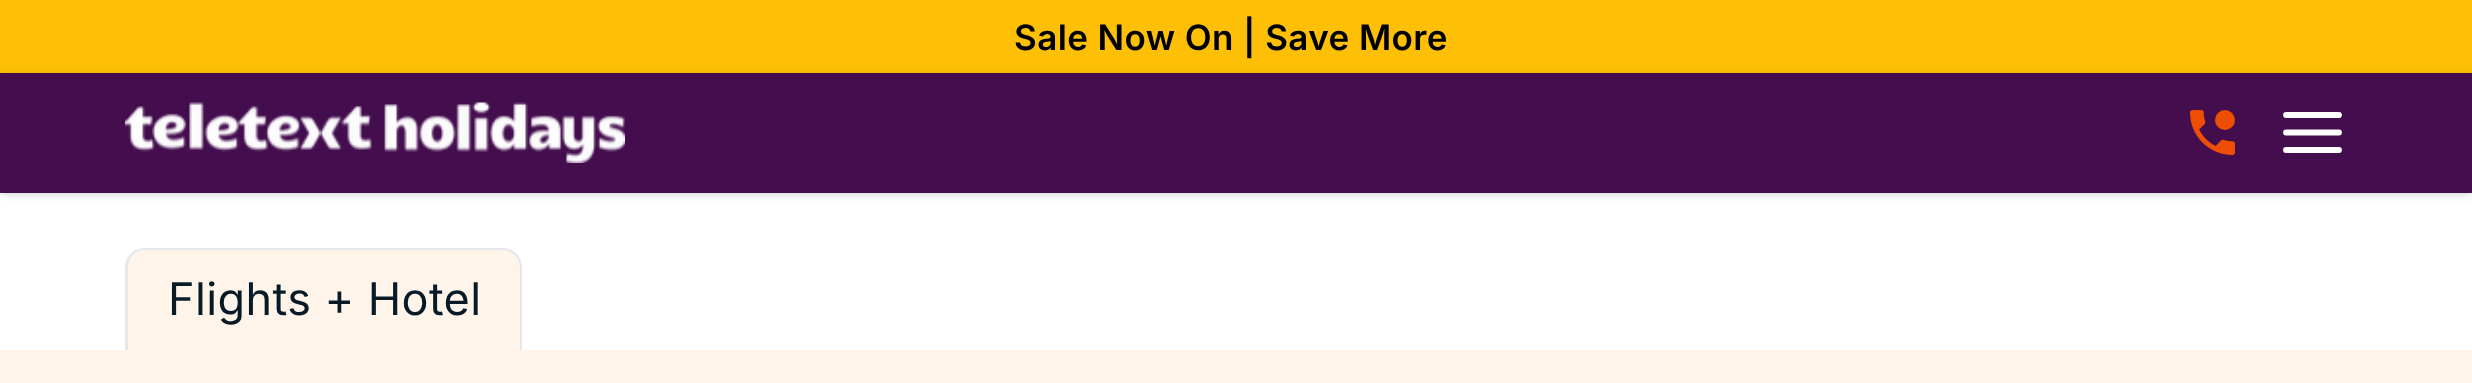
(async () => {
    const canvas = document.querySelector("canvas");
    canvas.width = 2472;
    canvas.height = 383;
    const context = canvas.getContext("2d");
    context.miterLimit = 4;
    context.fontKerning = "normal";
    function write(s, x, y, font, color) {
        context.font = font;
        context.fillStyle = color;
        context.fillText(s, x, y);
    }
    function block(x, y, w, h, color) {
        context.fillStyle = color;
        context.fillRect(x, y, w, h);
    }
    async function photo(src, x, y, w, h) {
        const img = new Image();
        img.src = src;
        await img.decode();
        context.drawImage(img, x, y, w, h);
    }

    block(0, 0, 2472, 383, "rgb(255, 255, 255)");
    block(0, 0, 2472, 73, "rgb(253, 192, 6)");
    context.letterSpacing = "0.4px";
    write("Sale Now On | Save More", 1014, 50, "600 35px Inter", "rgb(0, 0, 0)");
    context.fillStyle = "rgba(0, 0, 0, 0.1)";
    context.filter = "blur(2.5px)";
    context.beginPath();
    context.rect(3, 78, 2467, 115);
    context.fill();
    context.filter = "none";
    context.filter = "blur(4px)";
    context.beginPath();
    context.rect(0, 75, 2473, 120);
    context.fill();
    context.filter = "none";
    block(0, 73, 2472, 120, "rgb(68, 13, 78)");
    await photo("media/1.png", 125, 102, 500, 61);
    await photo("media/2.png", 2190, 110, 45, 45);
    context.fillStyle = "rgb(237, 78, 3)";
    context.beginPath();
    context.arc(2225, 120, 10, 0, Math.PI * 2);
    context.fill();
    context.beginPath();
    context.moveTo(2286, 132.5);
    context.lineTo(2339, 132.5);
    context.moveTo(2286, 115);
    context.lineTo(2339, 115);
    context.moveTo(2286, 150);
    context.lineTo(2339, 150);
    context.strokeStyle = "rgb(255, 255, 255)";
    context.lineWidth = 5.8;
    context.lineCap = "round";
    context.lineJoin = "round";
    context.stroke();
    context.fillStyle = "rgb(254, 244, 234)";
    context.beginPath();
    context.roundRect(128, 250, 392, 100, [18, 18, 0, 0]);
    context.fill();
    context.fillStyle = "rgb(229, 231, 235)";
    context.beginPath();
    context.moveTo(145, 248);
    context.lineTo(502, 248);
    context.bezierCurveTo(514, 248, 522, 256, 522, 268);
    context.lineTo(522, 350);
    context.lineTo(125, 350);
    context.lineTo(125, 268);
    context.bezierCurveTo(125, 256, 134, 248, 145, 248);
    context.closePath();
    context.moveTo(145, 250);
    context.lineTo(502, 250);
    context.bezierCurveTo(512, 250, 520, 258, 520, 268);
    context.lineTo(520, 350);
    context.lineTo(128, 350);
    context.lineTo(128, 268);
    context.bezierCurveTo(128, 258, 135, 250, 145, 250);
    context.closePath();
    context.fill("evenodd");
    write("Flights + Hotel", 168, 315, "45px Inter", "rgb(7, 26, 38)");
    block(0, 350, 2472, 33, "rgb(254, 244, 234)");
})();
